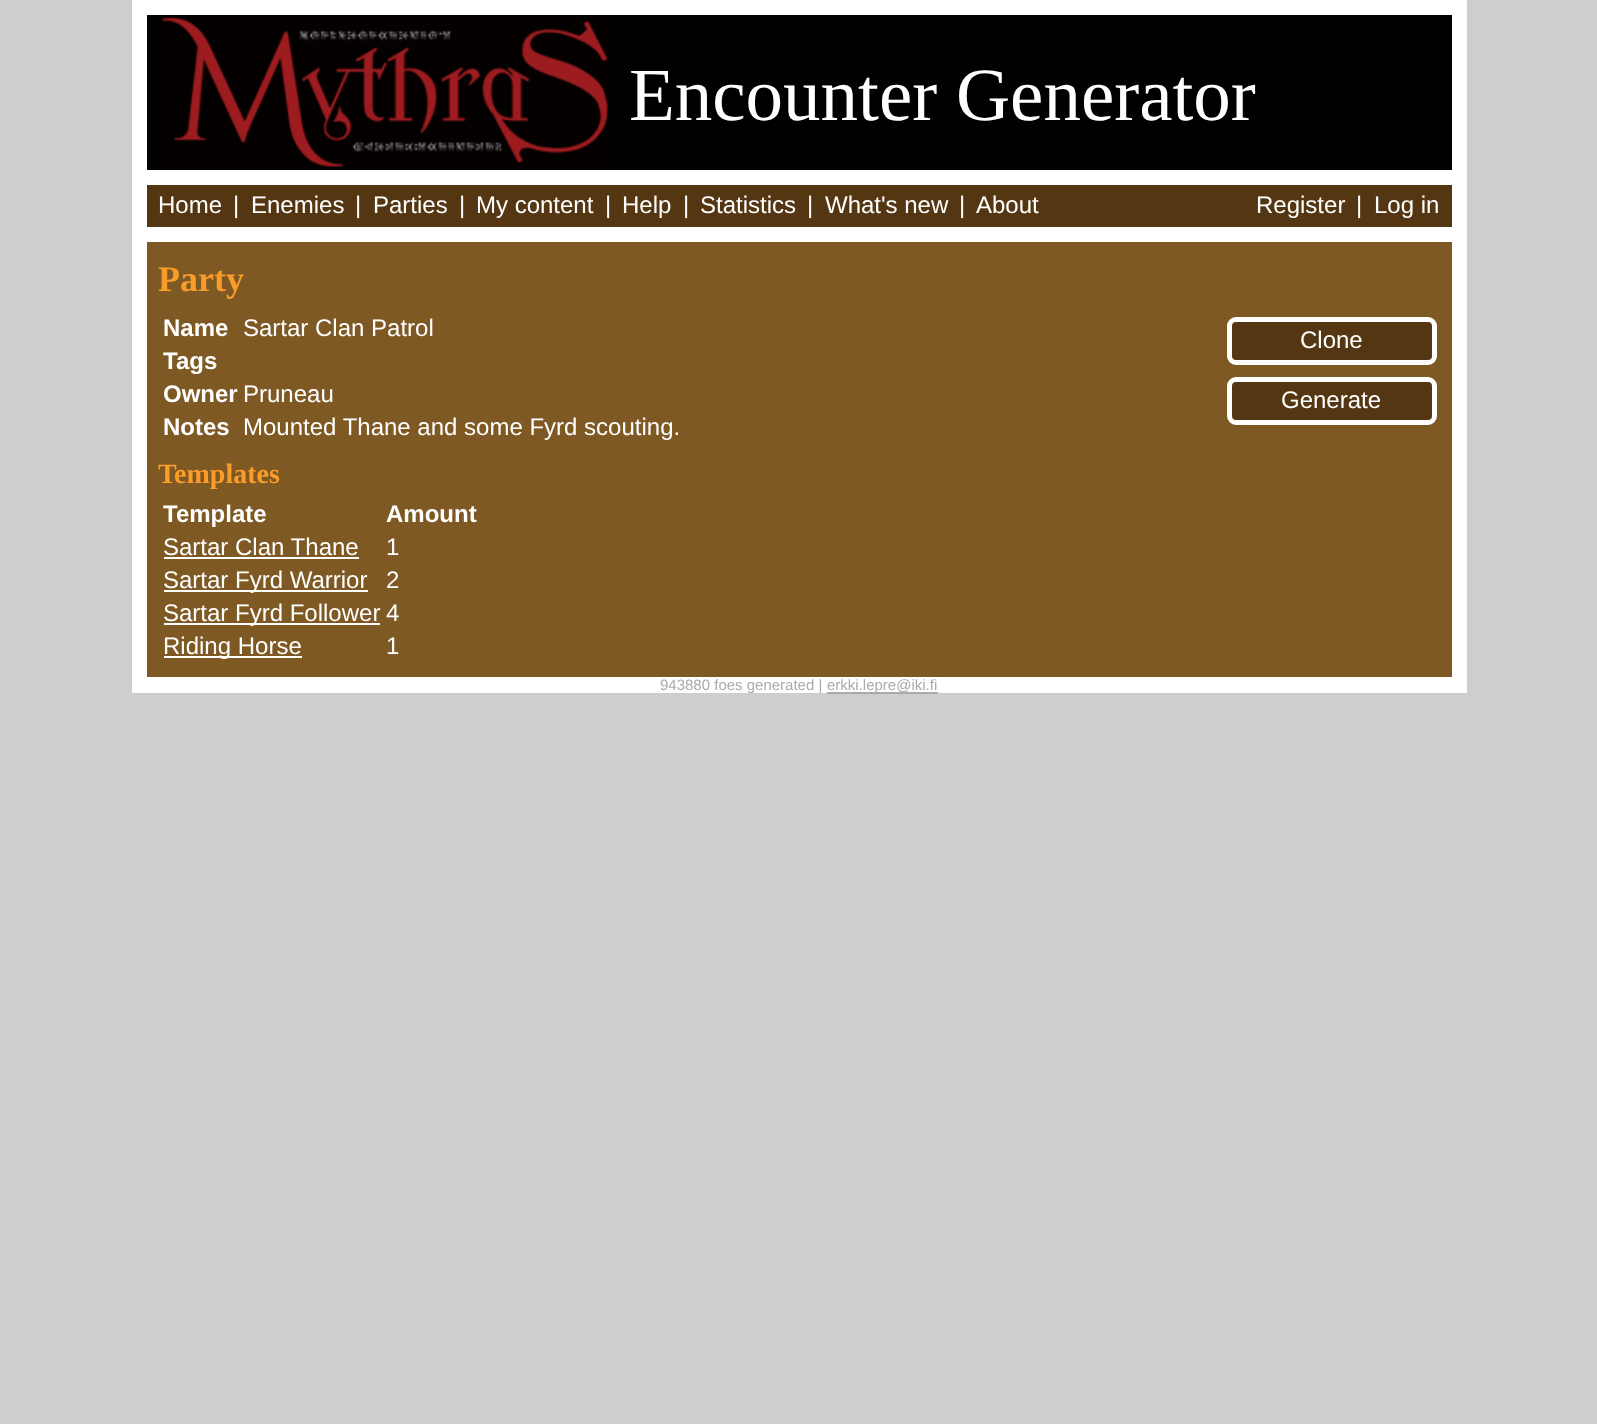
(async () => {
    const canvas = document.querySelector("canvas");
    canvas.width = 1597;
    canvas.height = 1424;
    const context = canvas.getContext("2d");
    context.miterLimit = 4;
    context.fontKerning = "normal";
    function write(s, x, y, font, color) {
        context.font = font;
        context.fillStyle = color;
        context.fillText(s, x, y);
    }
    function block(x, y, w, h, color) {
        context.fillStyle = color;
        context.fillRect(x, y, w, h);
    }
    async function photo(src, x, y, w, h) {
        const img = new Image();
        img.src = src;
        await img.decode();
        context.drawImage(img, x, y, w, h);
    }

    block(0, 0, 1597, 1424, "rgb(206, 206, 206)");
    block(132, 0, 1335, 693, "rgb(255, 255, 255)");
    block(147, 15, 1305, 155, "rgb(0, 0, 0)");
    await photo("media/1.png", 161, 17, 447, 150);
    write("Encounter Generator", 629, 120, "75px Liberation Serif", "rgb(255, 255, 255)");
    block(147, 185, 1305, 42, "rgb(84, 55, 18)");
    write("Home", 158, 213, "24px Liberation Sans", "rgb(255, 255, 255)");
    write("|", 233, 213, "24px Liberation Sans", "rgb(255, 255, 255)");
    write("Enemies", 251, 213, "24px Liberation Sans", "rgb(255, 255, 255)");
    write("|", 355, 213, "24px Liberation Sans", "rgb(255, 255, 255)");
    write("Parties", 373, 213, "24px Liberation Sans", "rgb(255, 255, 255)");
    write("|", 459, 213, "24px Liberation Sans", "rgb(255, 255, 255)");
    write("My content", 476, 213, "24px Liberation Sans", "rgb(255, 255, 255)");
    write("|", 605, 213, "24px Liberation Sans", "rgb(255, 255, 255)");
    write("Help", 622, 213, "24px Liberation Sans", "rgb(255, 255, 255)");
    write("|", 683, 213, "24px Liberation Sans", "rgb(255, 255, 255)");
    write("Statistics", 700, 213, "24px Liberation Sans", "rgb(255, 255, 255)");
    write("|", 807, 213, "24px Liberation Sans", "rgb(255, 255, 255)");
    write("What's new", 825, 213, "24px Liberation Sans", "rgb(255, 255, 255)");
    write("|", 959, 213, "24px Liberation Sans", "rgb(255, 255, 255)");
    write("About", 976, 213, "24px Liberation Sans", "rgb(255, 255, 255)");
    write("Register", 1256, 213, "24px Liberation Sans", "rgb(255, 255, 255)");
    write("|", 1356, 213, "24px Liberation Sans", "rgb(255, 255, 255)");
    write("Log in", 1374, 213, "24px Liberation Sans", "rgb(255, 255, 255)");
    block(147, 242, 1305, 435, "rgb(127, 89, 36)");
    write("Party", 158, 291, "bold 36px Liberation Serif", "rgb(249, 156, 42)");
    write("Name", 163, 336, "bold 24px Liberation Sans", "rgb(255, 255, 255)");
    write("Sartar Clan Patrol", 243, 336, "24px Liberation Sans", "rgb(255, 255, 255)");
    write("Tags", 163, 369, "bold 24px Liberation Sans", "rgb(255, 255, 255)");
    write("Owner", 163, 402, "bold 24px Liberation Sans", "rgb(255, 255, 255)");
    write("Pruneau", 243, 402, "24px Liberation Sans", "rgb(255, 255, 255)");
    write("Notes", 163, 435, "bold 24px Liberation Sans", "rgb(255, 255, 255)");
    write("Mounted Thane and some Fyrd scouting.", 243, 435, "24px Liberation Sans", "rgb(255, 255, 255)");
    context.fillStyle = "rgb(84, 55, 18)";
    context.beginPath();
    context.roundRect(1229.5, 319.5, 205, 43, 6.5);
    context.fill();
    context.strokeStyle = "rgb(255, 255, 255)";
    context.lineWidth = 5;
    context.stroke();
    write("Clone", 1300, 348, "24px Liberation Sans", "rgb(255, 255, 255)");
    context.fillStyle = "rgb(84, 55, 18)";
    context.beginPath();
    context.roundRect(1229.5, 379.5, 205, 43, 6.5);
    context.fill();
    context.stroke();
    write("Generate", 1281, 408, "24px Liberation Sans", "rgb(255, 255, 255)");
    write("Templates", 158, 483, "bold 28px Liberation Serif", "rgb(249, 156, 42)");
    write("Template", 163, 522, "bold 24px Liberation Sans", "rgb(255, 255, 255)");
    write("Amount", 386, 522, "bold 24px Liberation Sans", "rgb(255, 255, 255)");
    write("Sartar Clan Thane", 163, 555, "24px Liberation Sans", "rgb(255, 255, 255)");
    block(164, 557, 195, 2, "rgb(255, 255, 255)");
    write("1", 386, 555, "24px Liberation Sans", "rgb(255, 255, 255)");
    block(164, 590, 204, 2, "rgb(255, 255, 255)");
    write("Sartar Fyrd Warrior", 163, 588, "24px Liberation Sans", "rgb(255, 255, 255)");
    write("2", 386, 588, "24px Liberation Sans", "rgb(255, 255, 255)");
    block(164, 623, 216, 2, "rgb(255, 255, 255)");
    write("Sartar Fyrd Follower", 163, 621, "24px Liberation Sans", "rgb(255, 255, 255)");
    write("4", 386, 621, "24px Liberation Sans", "rgb(255, 255, 255)");
    block(164, 656, 138, 2, "rgb(255, 255, 255)");
    write("Riding Horse", 163, 654, "24px Liberation Sans", "rgb(255, 255, 255)");
    write("1", 386, 654, "24px Liberation Sans", "rgb(255, 255, 255)");
    write("943880 foes generated |", 660, 690, "15px Liberation Sans", "rgb(170, 170, 170)");
    block(827, 692, 111, 2, "rgb(170, 170, 170)");
    write("erkki.lepre@iki.fi", 827, 690, "15px Liberation Sans", "rgb(170, 170, 170)");
})();
